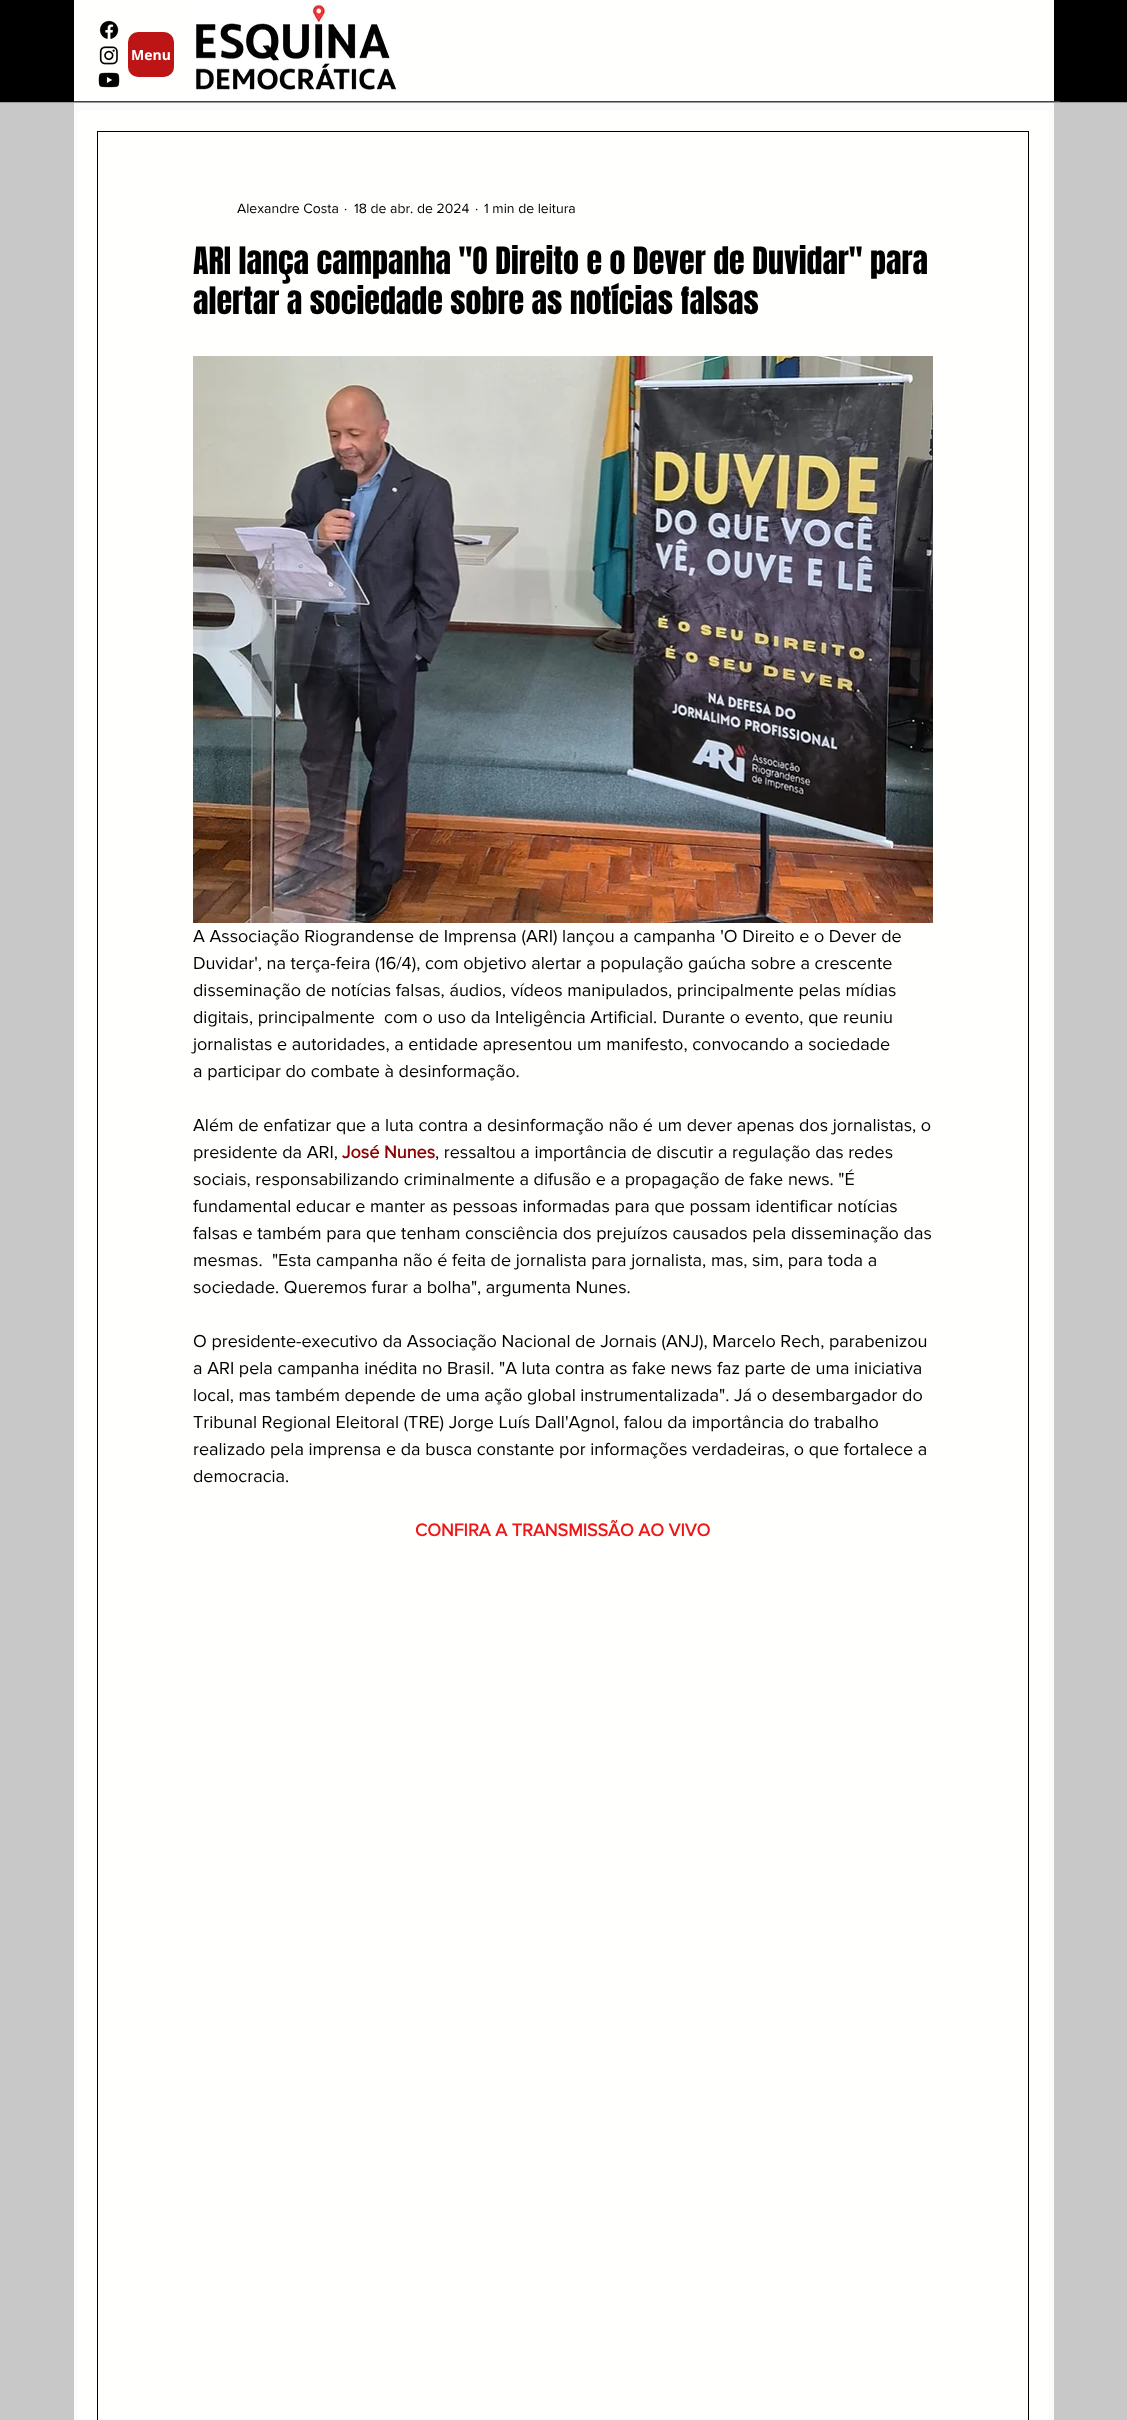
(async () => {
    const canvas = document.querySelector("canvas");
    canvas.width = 1127;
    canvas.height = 2420;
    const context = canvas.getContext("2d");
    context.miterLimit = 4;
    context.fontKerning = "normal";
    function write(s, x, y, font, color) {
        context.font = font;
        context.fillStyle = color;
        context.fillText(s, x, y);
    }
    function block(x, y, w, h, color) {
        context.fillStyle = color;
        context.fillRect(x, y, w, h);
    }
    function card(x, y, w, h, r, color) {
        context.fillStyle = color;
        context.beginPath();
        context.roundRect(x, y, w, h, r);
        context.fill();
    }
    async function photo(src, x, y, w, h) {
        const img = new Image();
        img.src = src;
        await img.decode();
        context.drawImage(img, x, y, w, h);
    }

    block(0, 0, 1127, 2420, "rgb(200, 200, 200)");
    block(0, 0, 1127, 102, "rgb(0, 0, 0)");
    block(0, 102, 1127, 1, "rgb(153, 153, 153)");
    block(74, 0, 980, 101, "rgb(255, 255, 254)");
    await photo("media/1.png", 99, 20, 20, 19);
    await photo("media/2.png", 99, 46, 19, 19);
    await photo("media/3.png", 98, 72, 22, 16);
    card(128, 32, 46, 45, 10, "rgb(189, 21, 21)");
    write("Menu", 131, 60, "bold 14px Open Sans", "rgb(255, 255, 255)");
    await photo("media/4.png", 195, 3, 203, 88);
    block(74, 103, 980, 2317, "rgb(251, 251, 251)");
    block(74, 101, 986, 1, "rgb(66, 66, 66)");
    block(77, 111, 972, 2309, "rgb(255, 255, 254)");
    context.strokeStyle = "rgb(0, 0, 0)";
    context.strokeRect(97.5, 131.5, 931, 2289);
    write("Alexandre Costa", 237, 213, "14px 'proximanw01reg'", "rgb(0, 0, 0)");
    write("·", 344, 213, "14px 'proximanw01reg'", "rgb(0, 0, 0)");
    write("18 de abr. de 2024", 354, 213, "14px 'proximanw01reg'", "rgb(0, 0, 0)");
    write("·", 475, 213, "14px 'proximanw01reg'", "rgb(0, 0, 0)");
    write("1 min de leitura", 484, 213, "14px 'proximanw01reg'", "rgb(0, 0, 0)");
    write("ARI lança campanha \"O Direito e o Dever de Duvidar\" para", 193, 274, "32px Anton", "rgb(0, 0, 0)");
    write("alertar a sociedade sobre as notícias falsas", 193, 314, "32px Anton", "rgb(0, 0, 0)");
    await photo("media/5.png", 193, 356, 740, 567);
    write("A Associação Riograndense de Imprensa (ARI) lançou a campanha 'O Direito e o Dever de", 193, 942, "18px 'proximanw01reg'", "rgb(0, 0, 0)");
    write("Duvidar', na terça-feira (16/4), com objetivo alertar a população gaúcha sobre a crescente", 193, 969, "18px 'proximanw01reg'", "rgb(0, 0, 0)");
    write("disseminação de notícias falsas, áudios, vídeos manipulados, principalmente pelas mídias", 193, 996, "18px 'proximanw01reg'", "rgb(0, 0, 0)");
    write("digitais, principalmente  com o uso da Inteligência Artificial. Durante o evento, que reuniu", 193, 1023, "18px 'proximanw01reg'", "rgb(0, 0, 0)");
    write("jornalistas e autoridades, a entidade apresentou um manifesto, convocando a sociedade", 193, 1050, "18px 'proximanw01reg'", "rgb(0, 0, 0)");
    write("a participar do combate à desinformação.", 193, 1077, "18px 'proximanw01reg'", "rgb(0, 0, 0)");
    write("Além de enfatizar que a luta contra a desinformação não é um dever apenas dos jornalistas, o", 193, 1131, "18px 'proximanw01reg'", "rgb(0, 0, 0)");
    write("presidente da ARI,", 193, 1158, "18px 'proximanw01reg'", "rgb(0, 0, 0)");
    write("José Nunes", 342, 1158, "bold 18px 'proximanw01reg'", "rgb(139, 0, 0)");
    write(", ressaltou a importância de discutir a regulação das redes", 435, 1158, "18px 'proximanw01reg'", "rgb(0, 0, 0)");
    write("sociais, responsabilizando criminalmente a difusão e a propagação de fake news. \"É", 193, 1185, "18px 'proximanw01reg'", "rgb(0, 0, 0)");
    write("fundamental educar e manter as pessoas informadas para que possam identificar notícias", 193, 1212, "18px 'proximanw01reg'", "rgb(0, 0, 0)");
    write("falsas e também para que tenham consciência dos prejuízos causados pela disseminação das", 193, 1239, "18px 'proximanw01reg'", "rgb(0, 0, 0)");
    write("mesmas.  \"Esta campanha não é feita de jornalista para jornalista, mas, sim, para toda a", 193, 1266, "18px 'proximanw01reg'", "rgb(0, 0, 0)");
    write("sociedade. Queremos furar a bolha\", argumenta Nunes.", 193, 1293, "18px 'proximanw01reg'", "rgb(0, 0, 0)");
    write("O presidente-executivo da Associação Nacional de Jornais (ANJ), Marcelo Rech, parabenizou", 193, 1347, "18px 'proximanw01reg'", "rgb(0, 0, 0)");
    write("a ARI pela campanha inédita no Brasil. \"A luta contra as fake news faz parte de uma iniciativa", 193, 1374, "18px 'proximanw01reg'", "rgb(0, 0, 0)");
    write("local, mas também depende de uma ação global instrumentalizada\". Já o desembargador do", 193, 1401, "18px 'proximanw01reg'", "rgb(0, 0, 0)");
    write("Tribunal Regional Eleitoral (TRE) Jorge Luís Dall'Agnol, falou da importância do trabalho", 193, 1428, "18px 'proximanw01reg'", "rgb(0, 0, 0)");
    write("realizado pela imprensa e da busca constante por informações verdadeiras, o que fortalece a", 193, 1455, "18px 'proximanw01reg'", "rgb(0, 0, 0)");
    write("democracia.", 193, 1482, "18px 'proximanw01reg'", "rgb(0, 0, 0)");
    write("CONFIRA A TRANSMISSÃO AO VIVO", 415, 1536, "bold 18px 'proximanw01reg'", "rgb(238, 22, 22)");
})();
